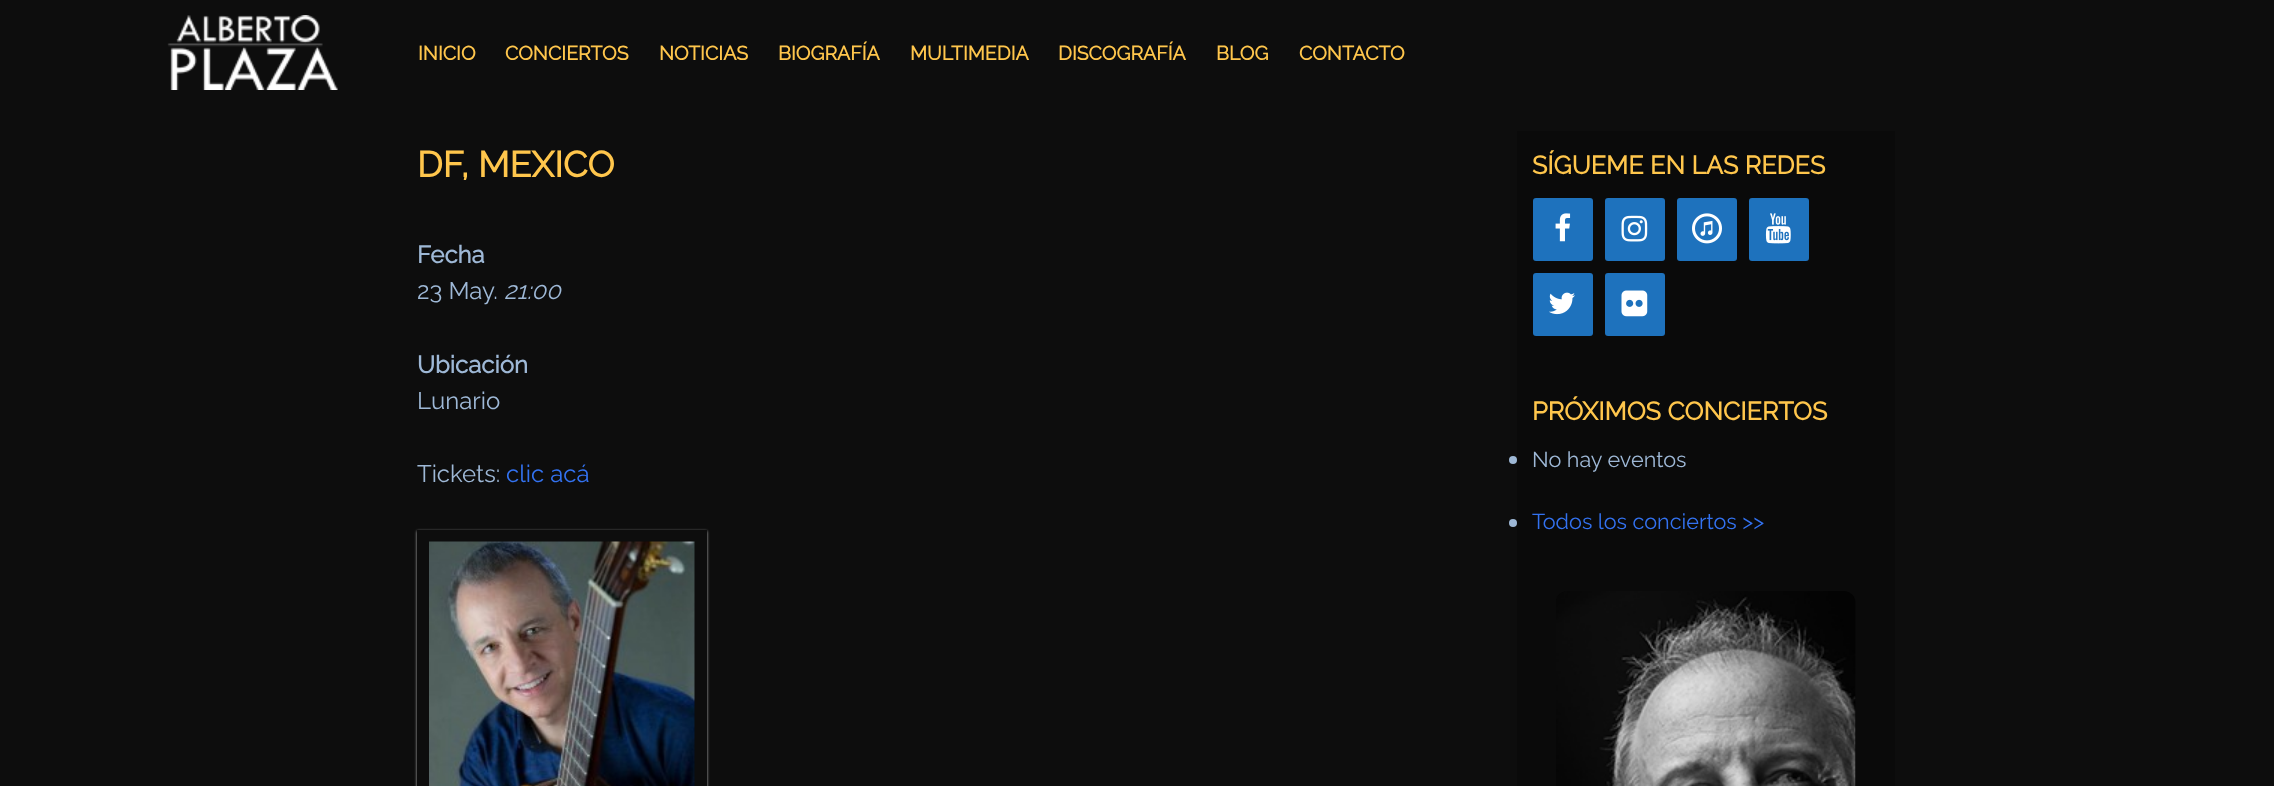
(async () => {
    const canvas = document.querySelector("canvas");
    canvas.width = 2274;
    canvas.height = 786;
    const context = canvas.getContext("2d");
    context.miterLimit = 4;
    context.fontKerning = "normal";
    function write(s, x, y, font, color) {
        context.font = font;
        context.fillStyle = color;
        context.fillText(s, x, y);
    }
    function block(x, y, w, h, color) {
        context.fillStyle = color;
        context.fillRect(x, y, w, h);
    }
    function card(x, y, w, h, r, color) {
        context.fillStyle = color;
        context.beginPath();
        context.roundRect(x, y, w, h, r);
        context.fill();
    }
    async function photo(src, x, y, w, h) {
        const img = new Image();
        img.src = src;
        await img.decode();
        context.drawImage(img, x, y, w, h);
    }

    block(0, 0, 2274, 786, "rgb(13, 13, 13)");
    await photo("media/1.png", 167, 15, 171, 75);
    write("INICIO", 418, 60, "bold 19.5px Raleway", "rgb(255, 198, 76)");
    write("CONCIERTOS", 505, 60, "bold 19.5px Raleway", "rgb(255, 198, 76)");
    write("NOTICIAS", 659, 60, "bold 19.5px Raleway", "rgb(255, 198, 76)");
    write("BIOGRAFÍA", 778, 60, "bold 19.5px Raleway", "rgb(255, 198, 76)");
    write("MULTIMEDIA", 910, 60, "bold 19.5px Raleway", "rgb(255, 198, 76)");
    write("DISCOGRAFÍA", 1058, 60, "bold 19.5px Raleway", "rgb(255, 198, 76)");
    write("BLOG", 1216, 60, "bold 19.5px Raleway", "rgb(255, 198, 76)");
    write("CONTACTO", 1299, 60, "bold 19.5px Raleway", "rgb(255, 198, 76)");
    write("DF, MEXICO", 417, 177, "bold 36px Raleway", "rgb(255, 198, 76)");
    write("Fecha", 417, 263, "bold 24px Raleway", "rgb(158, 184, 214)");
    write("23 May.", 417, 299, "100 24px Raleway", "rgb(158, 184, 214)");
    write("21:00", 504, 299, "italic 100 24px Raleway", "rgb(158, 184, 214)");
    write("Ubicación", 417, 373, "bold 24px Raleway", "rgb(158, 184, 214)");
    write("Lunario", 417, 409, "100 24px Raleway", "rgb(158, 184, 214)");
    write("Tickets:", 417, 482, "100 24px Raleway", "rgb(158, 184, 214)");
    write("clic acá", 506, 482, "100 24px Raleway", "rgb(51, 114, 240)");
    context.save();
    context.beginPath();
    context.moveTo(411, 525);
    context.lineTo(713, 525);
    context.lineTo(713, 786);
    context.lineTo(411, 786);
    context.closePath();
    context.moveTo(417, 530);
    context.lineTo(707, 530);
    context.lineTo(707, 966);
    context.lineTo(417, 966);
    context.closePath();
    context.clip("evenodd");
    context.fillStyle = "rgb(187, 187, 187)";
    context.filter = "blur(1.5px)";
    context.beginPath();
    context.rect(417, 531, 290, 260);
    context.fill();
    context.filter = "none";
    context.restore();
    await photo("media/2.png", 429, 541, 266, 245);
    block(1517, 131, 378, 655, "rgb(10, 10, 10)");
    write("SÍGUEME EN LAS REDES", 1532, 174, "bold 25.25px Raleway", "rgb(255, 198, 76)");
    card(1533, 198, 60, 63, 3, "rgb(30, 114, 189)");
    await photo("media/3.png", 1555, 213, 16, 29);
    card(1605, 198, 60, 63, 3, "rgb(30, 114, 189)");
    await photo("media/4.png", 1621, 215, 27, 27);
    card(1677, 198, 60, 63, 3, "rgb(30, 114, 189)");
    await photo("media/5.png", 1692, 213, 30, 31);
    card(1749, 198, 60, 63, 3, "rgb(30, 114, 189)");
    await photo("media/6.png", 1765, 213, 26, 31);
    card(1533, 273, 60, 63, 3, "rgb(30, 114, 189)");
    await photo("media/7.png", 1549, 292, 26, 23);
    card(1605, 273, 60, 63, 3, "rgb(30, 114, 189)");
    await photo("media/8.png", 1621, 290, 27, 27);
    write("PRÓXIMOS CONCIERTOS", 1532, 420, "bold 25.25px Raleway", "rgb(255, 198, 76)");
    context.fillStyle = "rgb(158, 184, 214)";
    context.beginPath();
    context.arc(1513, 460, 4, 0, Math.PI * 2);
    context.fill();
    write("No hay eventos", 1532, 467, "100 21.6px Raleway", "rgb(158, 184, 214)");
    context.beginPath();
    context.arc(1513, 523, 4, 0, Math.PI * 2);
    context.fill();
    write("Todos los conciertos >>", 1532, 529, "100 21.6px Raleway", "rgb(51, 114, 240)");
    await photo("media/9.png", 1556, 591, 300, 195);
})();
